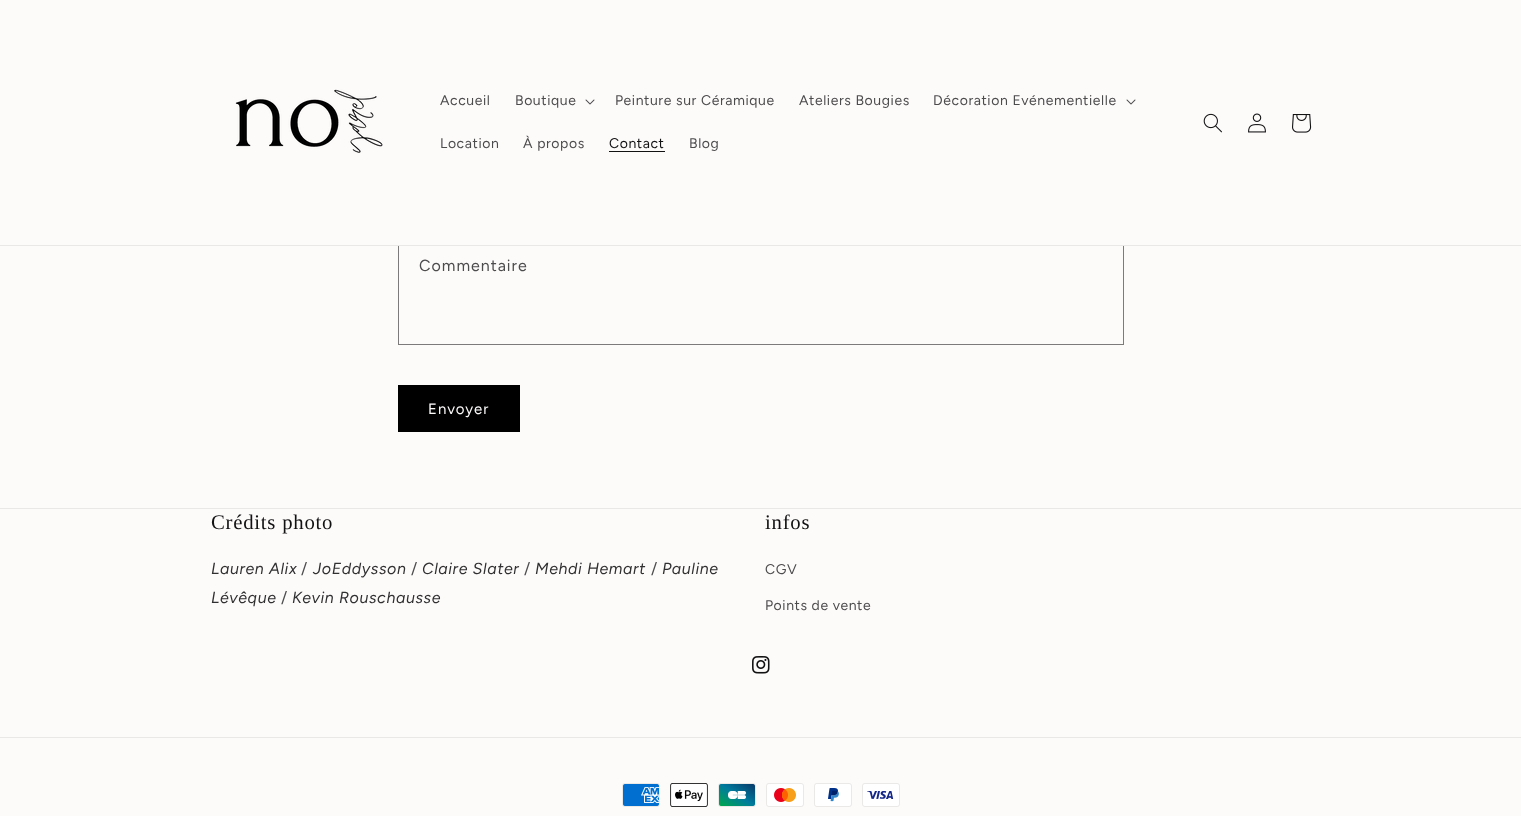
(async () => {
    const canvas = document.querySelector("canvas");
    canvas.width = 1521;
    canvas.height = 816;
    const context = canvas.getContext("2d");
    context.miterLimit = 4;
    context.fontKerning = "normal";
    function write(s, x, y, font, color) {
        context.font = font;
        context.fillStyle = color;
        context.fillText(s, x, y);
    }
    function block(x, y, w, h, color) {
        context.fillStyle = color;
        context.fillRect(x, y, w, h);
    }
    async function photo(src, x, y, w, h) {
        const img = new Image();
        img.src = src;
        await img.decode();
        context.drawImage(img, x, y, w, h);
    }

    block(0, 0, 1521, 816, "rgb(253, 250, 250)");
    context.strokeStyle = "rgb(124, 122, 122)";
    context.strokeRect(398.5, 243.5, 725, 101);
    block(398, 243, 726, 2, "rgb(253, 250, 250)");
    block(0, 245, 1521, 1, "rgb(234, 231, 231)");
    await photo("media/1.png", 235, 89, 148, 64);
    context.letterSpacing = "0.6px";
    write("Accueil", 440, 105, "14px Figtree", "rgb(77, 76, 76)");
    write("Boutique", 515, 105, "14px Figtree", "rgb(77, 76, 76)");
    await photo("media/2.png", 585, 99, 10, 6);
    write("Peinture sur Céramique", 615, 105, "14px Figtree", "rgb(77, 76, 76)");
    write("Ateliers Bougies", 799, 105, "14px Figtree", "rgb(77, 76, 76)");
    write("Décoration Evénementielle", 933, 105, "14px Figtree", "rgb(77, 76, 76)");
    await photo("media/2.png", 1126, 99, 10, 6);
    write("Location", 440, 148, "14px Figtree", "rgb(77, 76, 76)");
    write("À propos", 523, 148, "14px Figtree", "rgb(77, 76, 76)");
    write("Contact", 609, 148, "14px Figtree", "rgb(18, 18, 18)");
    block(609, 151, 56, 1, "rgb(18, 18, 18)");
    write("Blog", 689, 148, "14px Figtree", "rgb(77, 76, 76)");
    await photo("media/3.png", 1203, 113, 19, 20);
    await photo("media/4.png", 1248, 113, 18, 20);
    await photo("media/5.png", 1292, 114, 20, 19);
    context.letterSpacing = "1px";
    write("Commentaire", 419, 271, "16px Figtree", "rgb(77, 76, 76)");
    block(398, 385, 122, 47, "rgb(0, 0, 0)");
    write("Envoyer", 428, 414, "15px Figtree", "rgb(253, 250, 250)");
    block(0, 508, 1521, 1, "rgb(234, 231, 231)");
    context.letterSpacing = "0.75px";
    write("Crédits photo", 211, 529, "20.75px Liberation Serif", "rgb(18, 18, 18)");
    context.letterSpacing = "0.6px";
    write("Lauren Alix", 211, 574, "italic 16px Figtree", "rgb(49, 48, 48)");
    write("/", 301, 574, "16px Figtree", "rgb(77, 76, 76)");
    write("JoEddysson", 313, 574, "italic 16px Figtree", "rgb(49, 48, 48)");
    write("/", 411, 574, "16px Figtree", "rgb(77, 76, 76)");
    write("Claire Slater", 422, 574, "italic 16px Figtree", "rgb(49, 48, 48)");
    write("/", 524, 574, "16px Figtree", "rgb(77, 76, 76)");
    write("Mehdi Hemart", 535, 574, "italic 16px Figtree", "rgb(49, 48, 48)");
    write("/", 651, 574, "16px Figtree", "rgb(77, 76, 76)");
    write("Pauline", 662, 574, "italic 16px Figtree", "rgb(49, 48, 48)");
    write("Lévêque", 211, 603, "italic 16px Figtree", "rgb(49, 48, 48)");
    write("/", 281, 603, "16px Figtree", "rgb(77, 76, 76)");
    write("Kevin Rouschausse", 292, 603, "italic 16px Figtree", "rgb(49, 48, 48)");
    context.letterSpacing = "0.75px";
    write("infos", 765, 529, "20.75px Liberation Serif", "rgb(18, 18, 18)");
    context.letterSpacing = "0.6px";
    write("CGV", 765, 574, "14px Figtree", "rgb(77, 76, 76)");
    write("Points de vente", 765, 610, "14px Figtree", "rgb(77, 76, 76)");
    await photo("media/6.png", 752, 656, 18, 18);
    block(0, 737, 1521, 1, "rgb(234, 231, 231)");
    await photo("media/7.png", 622, 783, 38, 24);
    await photo("media/8.png", 670, 783, 38, 24);
    await photo("media/9.png", 718, 783, 38, 24);
    await photo("media/10.png", 766, 783, 38, 24);
    await photo("media/11.png", 814, 783, 38, 24);
    await photo("media/12.png", 862, 783, 38, 24);
})();
